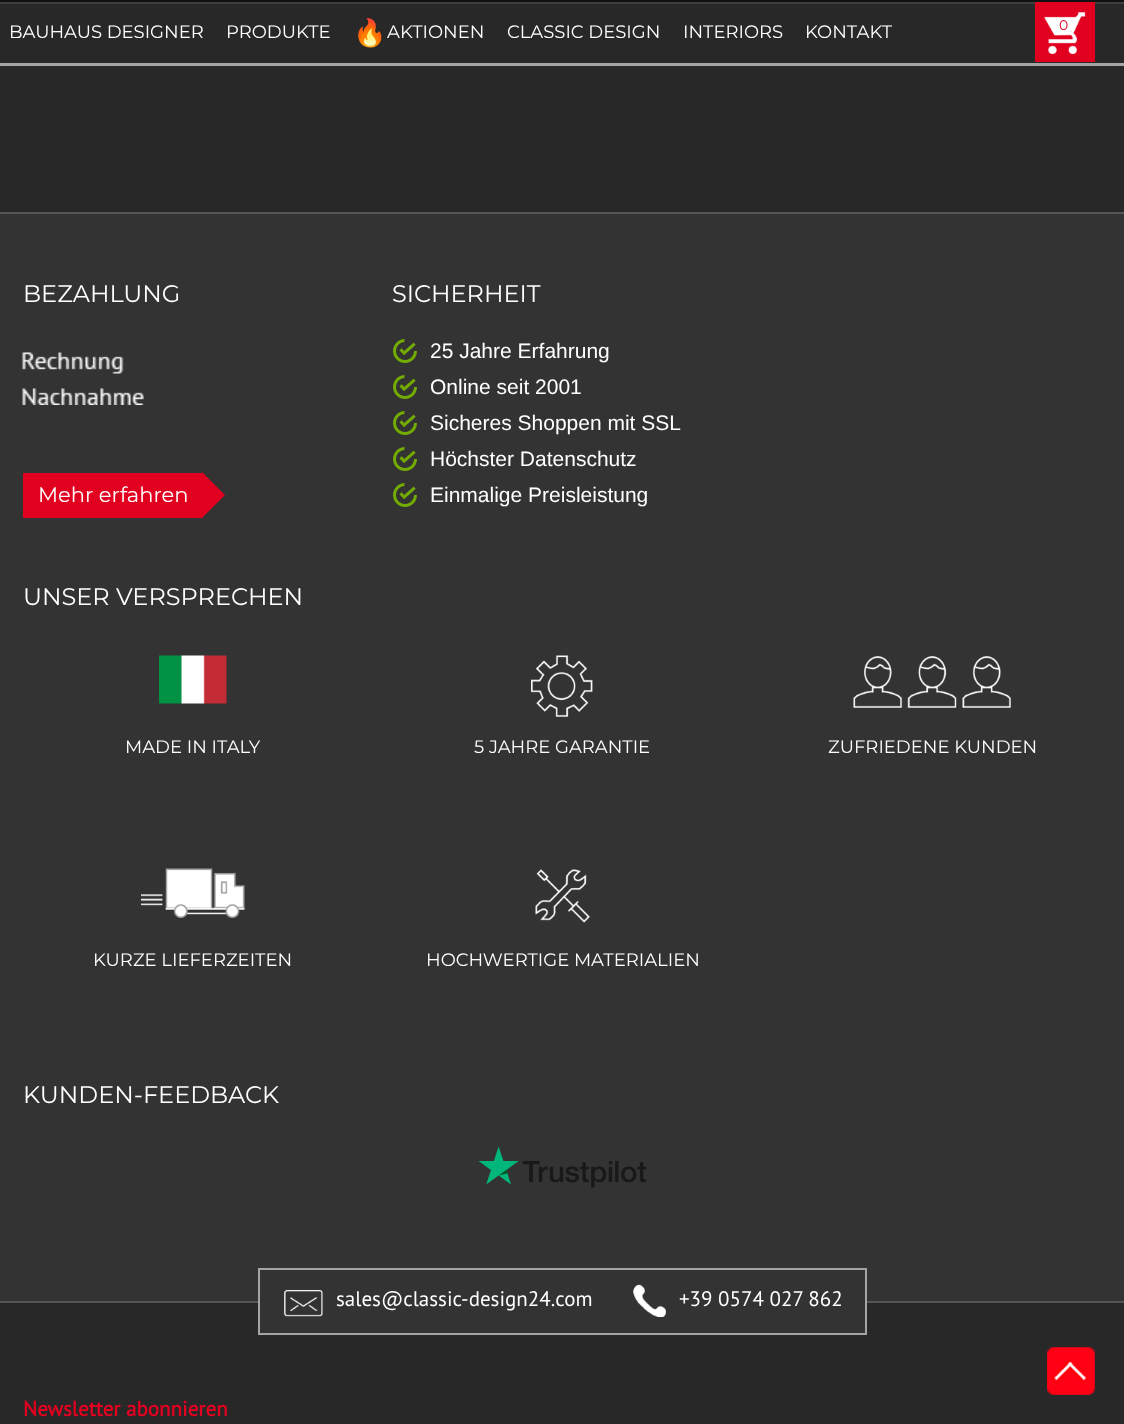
(async () => {
    const canvas = document.querySelector("canvas");
    canvas.width = 1124;
    canvas.height = 1424;
    const context = canvas.getContext("2d");
    context.miterLimit = 4;
    context.fontKerning = "normal";
    function write(s, x, y, font, color) {
        context.font = font;
        context.fillStyle = color;
        context.fillText(s, x, y);
    }
    function block(x, y, w, h, color) {
        context.fillStyle = color;
        context.fillRect(x, y, w, h);
    }
    async function photo(src, x, y, w, h) {
        const img = new Image();
        img.src = src;
        await img.decode();
        context.drawImage(img, x, y, w, h);
    }

    block(0, 0, 1124, 1424, "rgb(40, 40, 40)");
    block(0, 63, 1124, 3, "rgb(164, 164, 164)");
    block(0, 2, 1124, 2, "rgb(62, 62, 62)");
    block(0, 0, 1124, 2, "rgb(16, 16, 16)");
    write("BAUHAUS DESIGNER", 9, 38, "18px Montserrat", "rgb(255, 255, 255)");
    write("PRODUKTE", 226, 38, "18px Montserrat", "rgb(255, 255, 255)");
    write("🔥", 353, 42, "27px Noto Color Emoji", "rgb(255, 255, 255)");
    write("AKTIONEN", 387, 38, "18px Montserrat", "rgb(255, 255, 255)");
    write("CLASSIC DESIGN", 507, 38, "18px Montserrat", "rgb(255, 255, 255)");
    write("INTERIORS", 683, 38, "18px Montserrat", "rgb(255, 255, 255)");
    write("KONTAKT", 805, 38, "18px Montserrat", "rgb(255, 255, 255)");
    block(1035, 2, 60, 60, "rgb(225, 0, 32)");
    await photo("media/1.png", 1044, 12, 42, 42);
    write("0", 1059, 30, "14px Montserrat", "rgb(225, 0, 32)");
    block(0, 214, 1124, 1087, "rgb(51, 51, 51)");
    block(0, 212, 1124, 2, "rgb(85, 85, 85)");
    block(0, 1301, 1124, 2, "rgb(85, 85, 85)");
    write("BEZAHLUNG", 23, 302, "24px Montserrat", "rgb(255, 255, 255)");
    await photo("media/2.png", 22, 352, 122, 53);
    block(23, 473, 180, 45, "rgb(225, 0, 32)");
    write("Mehr erfahren", 38, 502, "21px Montserrat", "rgb(255, 255, 255)");
    context.fillStyle = "rgb(225, 0, 32)";
    context.beginPath();
    context.moveTo(202, 518);
    context.lineTo(202, 472);
    context.lineTo(225, 495);
    context.closePath();
    context.fill();
    write("SICHERHEIT", 392, 302, "24px Montserrat", "rgb(255, 255, 255)");
    await photo("media/3.png", 393, 339, 24, 24);
    write("25 Jahre Erfahrung", 430, 358, "21px Liberation Sans", "rgb(255, 255, 255)");
    await photo("media/3.png", 393, 375, 24, 24);
    write("Online seit 2001", 430, 394, "21px Liberation Sans", "rgb(255, 255, 255)");
    await photo("media/3.png", 393, 411, 24, 24);
    write("Sicheres Shoppen mit SSL", 430, 430, "21px Liberation Sans", "rgb(255, 255, 255)");
    await photo("media/3.png", 393, 447, 24, 24);
    write("Höchster Datenschutz", 430, 466, "21px Liberation Sans", "rgb(255, 255, 255)");
    await photo("media/3.png", 393, 483, 24, 24);
    write("Einmalige Preisleistung", 430, 502, "21px Liberation Sans", "rgb(255, 255, 255)");
    write("UNSER VERSPRECHEN", 23, 605, "24px Montserrat", "rgb(255, 255, 255)");
    await photo("media/4.png", 159, 655, 68, 49);
    write("MADE IN ITALY", 125, 753, "18px Montserrat", "rgb(255, 255, 255)");
    await photo("media/5.png", 531, 655, 62, 62);
    write("5 JAHRE GARANTIE", 474, 753, "18px Montserrat", "rgb(255, 255, 255)");
    await photo("media/6.png", 853, 656, 158, 52);
    write("ZUFRIEDENE KUNDEN", 828, 753, "18px Montserrat", "rgb(255, 255, 255)");
    await photo("media/7.png", 141, 868, 104, 50);
    write("KURZE LIEFERZEITEN", 93, 966, "18px Montserrat", "rgb(255, 255, 255)");
    await photo("media/8.png", 535, 869, 55, 54);
    write("HOCHWERTIGE MATERIALIEN", 426, 966, "18px Montserrat", "rgb(255, 255, 255)");
    write("KUNDEN-FEEDBACK", 23, 1103, "24px Montserrat", "rgb(255, 255, 255)");
    await photo("media/9.png", 478, 1146, 169, 42);
    block(260, 1301, 605, 32, "rgb(51, 51, 51)");
    context.strokeStyle = "rgb(164, 164, 164)";
    context.lineWidth = 2;
    context.strokeRect(259, 1269, 607, 65);
    await photo("media/10.png", 284, 1290, 39, 27);
    write("sales@classic-design24.com", 336, 1306, "21px PT Sans", "rgb(255, 255, 255)");
    await photo("media/11.png", 633, 1284, 33, 33);
    write("+39 0574 027 862", 679, 1306, "21px PT Sans", "rgb(255, 255, 255)");
    write("Newsletter abonnieren", 23, 1416, "bold 21px PT Sans", "rgb(225, 0, 32)");
    await photo("media/12.png", 1047, 1347, 48, 48);
})();
